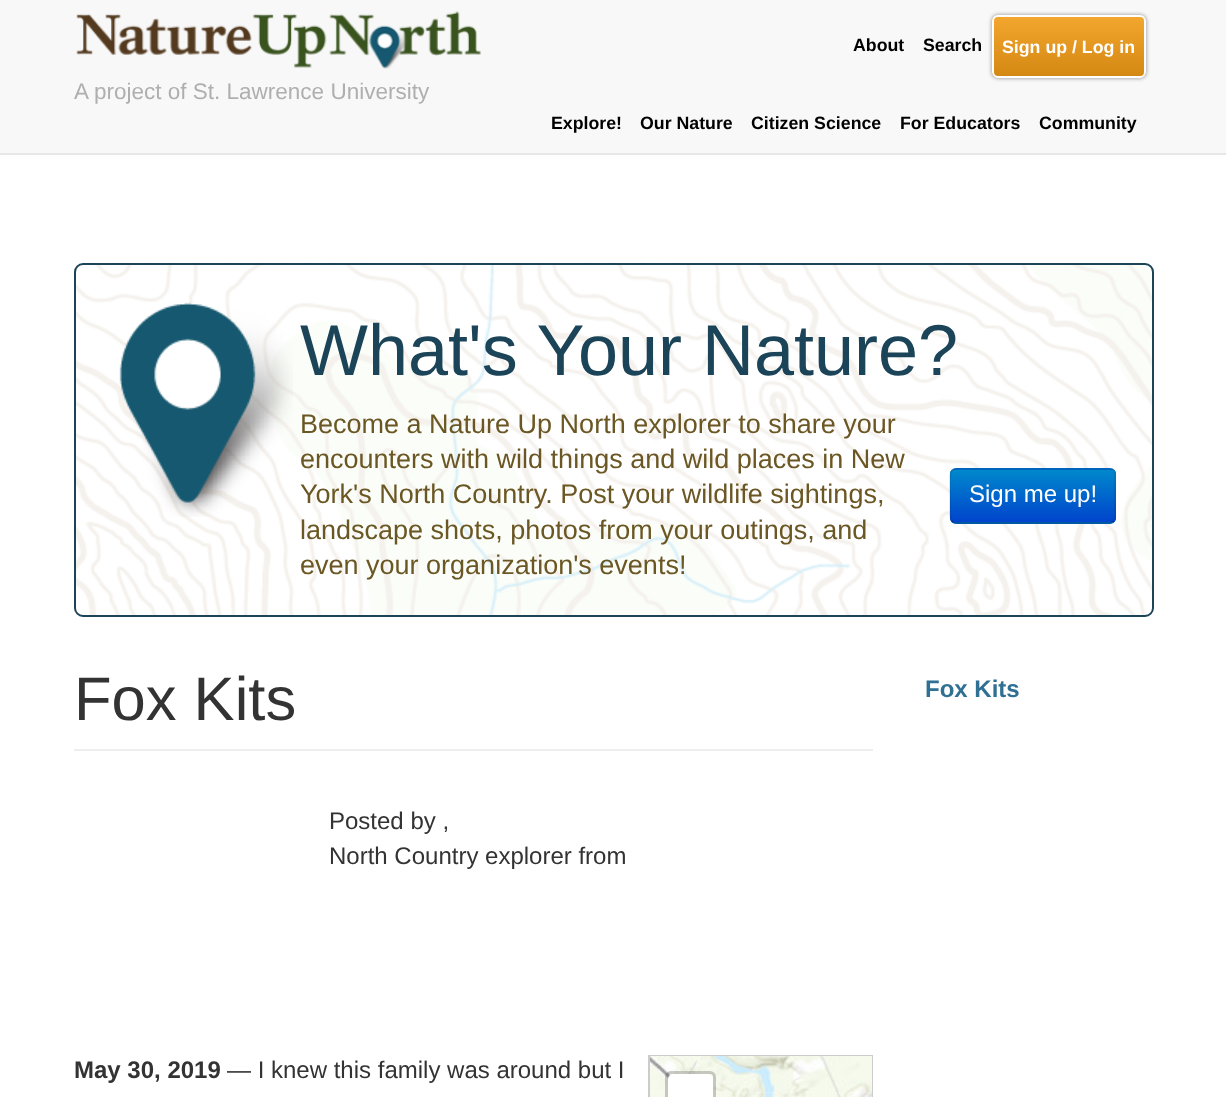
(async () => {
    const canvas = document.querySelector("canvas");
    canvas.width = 1226;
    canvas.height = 1097;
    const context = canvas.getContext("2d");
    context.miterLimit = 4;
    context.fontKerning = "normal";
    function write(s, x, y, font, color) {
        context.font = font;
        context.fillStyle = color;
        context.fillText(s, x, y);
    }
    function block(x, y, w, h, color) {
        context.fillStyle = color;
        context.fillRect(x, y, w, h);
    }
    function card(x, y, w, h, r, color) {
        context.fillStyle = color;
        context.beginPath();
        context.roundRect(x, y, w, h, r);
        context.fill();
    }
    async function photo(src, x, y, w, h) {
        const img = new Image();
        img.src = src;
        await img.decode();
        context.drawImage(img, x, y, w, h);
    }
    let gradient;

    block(0, 0, 1226, 1097, "rgb(255, 255, 255)");
    block(0, 0, 1226, 153, "rgb(248, 248, 248)");
    block(0, 153, 1226, 2, "rgb(231, 231, 231)");
    await photo("media/1.png", 76, 11, 405, 58);
    write("A project of St. Lawrence University", 74, 99, "22.5px Liberation Sans", "rgb(175, 175, 175)");
    write("About", 853, 51, "bold 17.75px Liberation Sans", "rgb(0, 0, 0)");
    write("Search", 923, 51, "bold 17.75px Liberation Sans", "rgb(0, 0, 0)");
    context.fillStyle = "rgb(137, 137, 137)";
    context.filter = "blur(2px)";
    context.beginPath();
    context.roundRect(992, 15, 154, 63, 6);
    context.fill();
    context.filter = "none";
    context.save();
    context.beginPath();
    context.roundRect(992, 15, 154, 63, 6);
    context.clip();
    gradient = context.createLinearGradient(1069, 16, 1069, 77);
    gradient.addColorStop(0, "rgb(244, 167, 45)");
    gradient.addColorStop(1, "rgb(211, 136, 19)");
    context.fillStyle = gradient;
    context.fillRect(992, 17, 154, 60);
    context.restore();
    context.beginPath();
    context.roundRect(993, 16, 152, 61, 5);
    context.strokeStyle = "rgb(255, 255, 255)";
    context.lineWidth = 2;
    context.stroke();
    write("Sign up / Log in", 1002, 53, "bold 17.75px Liberation Sans", "rgb(255, 255, 255)");
    write("Explore!", 551, 129, "bold 17.75px Liberation Sans", "rgb(0, 0, 0)");
    write("Our Nature", 640, 129, "bold 17.75px Liberation Sans", "rgb(0, 0, 0)");
    write("Citizen Science", 751, 129, "bold 17.75px Liberation Sans", "rgb(0, 0, 0)");
    write("For Educators", 900, 129, "bold 17.75px Liberation Sans", "rgb(0, 0, 0)");
    write("Community", 1039, 129, "bold 17.75px Liberation Sans", "rgb(0, 0, 0)");
    await photo("media/2.png", 73, 262, 1081, 355);
    context.beginPath();
    context.roundRect(75, 264, 1078, 352, 8);
    context.strokeStyle = "rgb(27, 68, 88)";
    context.stroke();
    await photo("media/3.png", 119, 302, 174, 215);
    write("What's Your Nature?", 300, 375, "72px Liberation Sans", "rgb(27, 68, 88)");
    write("Become a Nature Up North explorer to share your", 300, 433, "27px Liberation Sans", "rgb(107, 87, 36)");
    write("encounters with wild things and wild places in New", 300, 468, "27px Liberation Sans", "rgb(107, 87, 36)");
    write("York's North Country. Post your wildlife sightings,", 300, 503, "27px Liberation Sans", "rgb(107, 87, 36)");
    write("landscape shots, photos from your outings, and", 300, 539, "27px Liberation Sans", "rgb(107, 87, 36)");
    write("even your organization's events!", 300, 574, "27px Liberation Sans", "rgb(107, 87, 36)");
    card(950, 468, 166, 56, 6, "rgb(0, 109, 204)");
    context.save();
    context.beginPath();
    context.roundRect(950, 468, 166, 56, 6);
    context.clip();
    gradient = context.createLinearGradient(1033, 470, 1033, 522);
    gradient.addColorStop(0, "rgb(0, 136, 204)");
    gradient.addColorStop(1, "rgb(0, 68, 204)");
    context.fillStyle = gradient;
    context.fillRect(950, 470, 166, 52);
    context.restore();
    context.beginPath();
    context.moveTo(1113.5, 521);
    context.bezierCurveTo(1112.5, 522, 1111.5, 523, 1110, 523);
    context.lineTo(955.5, 523);
    context.bezierCurveTo(954, 523, 953, 522, 952, 521);
    context.strokeStyle = "rgba(0, 0, 0, 0.25)";
    context.lineWidth = 1.5;
    context.stroke();
    context.beginPath();
    context.moveTo(952, 521);
    context.bezierCurveTo(949, 518.5, 950, 513, 950, 510);
    context.lineTo(950, 496);
    context.bezierCurveTo(950, 462.5, 945.5, 469, 981, 469);
    context.lineTo(1110, 469);
    context.bezierCurveTo(1116.5, 469, 1115, 477, 1115, 481);
    context.lineTo(1115, 510);
    context.bezierCurveTo(1115, 513, 1116.5, 518.5, 1113.5, 521);
    context.strokeStyle = "rgba(0, 0, 0, 0.1)";
    context.stroke();
    write("Sign me up!", 969, 502, "24px Liberation Sans", "rgb(255, 255, 255)");
    block(74, 749, 799, 2, "rgb(238, 238, 238)");
    write("Fox Kits", 74, 720, "61.5px Liberation Sans", "rgb(51, 51, 51)");
    write("Posted by ,", 329, 829, "24px Liberation Sans", "rgb(51, 51, 51)");
    write("North Country explorer from", 329, 864, "24px Liberation Sans", "rgb(51, 51, 51)");
    write("May 30, 2019", 74, 1078, "bold 24px Liberation Sans", "rgb(51, 51, 51)");
    write("— I knew this family was around but I", 227, 1078, "24px Liberation Sans", "rgb(51, 51, 51)");
    context.strokeStyle = "rgb(204, 204, 204)";
    context.lineWidth = 2;
    context.strokeRect(649, 1056, 223, 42);
    await photo("media/4.png", 650, 1056, 222, 36);
    await photo("media/5.png", 650, 1091, 222, 6);
    context.beginPath();
    context.roundRect(666.5, 1072.5, 48, 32, 4.5);
    context.strokeStyle = "rgba(0, 0, 0, 0.2)";
    context.lineWidth = 3;
    context.stroke();
    context.fillStyle = "rgb(255, 255, 255)";
    context.beginPath();
    context.moveTo(674, 1074);
    context.lineTo(707, 1074);
    context.bezierCurveTo(710.5, 1074, 713, 1076.5, 713, 1080);
    context.lineTo(713, 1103);
    context.lineTo(668, 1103);
    context.lineTo(668, 1080);
    context.bezierCurveTo(668, 1076.5, 670.5, 1074, 674, 1074);
    context.closePath();
    context.fill();
    write("Fox Kits", 925, 697, "bold 24px Liberation Sans", "rgb(48, 112, 147)");
})();
